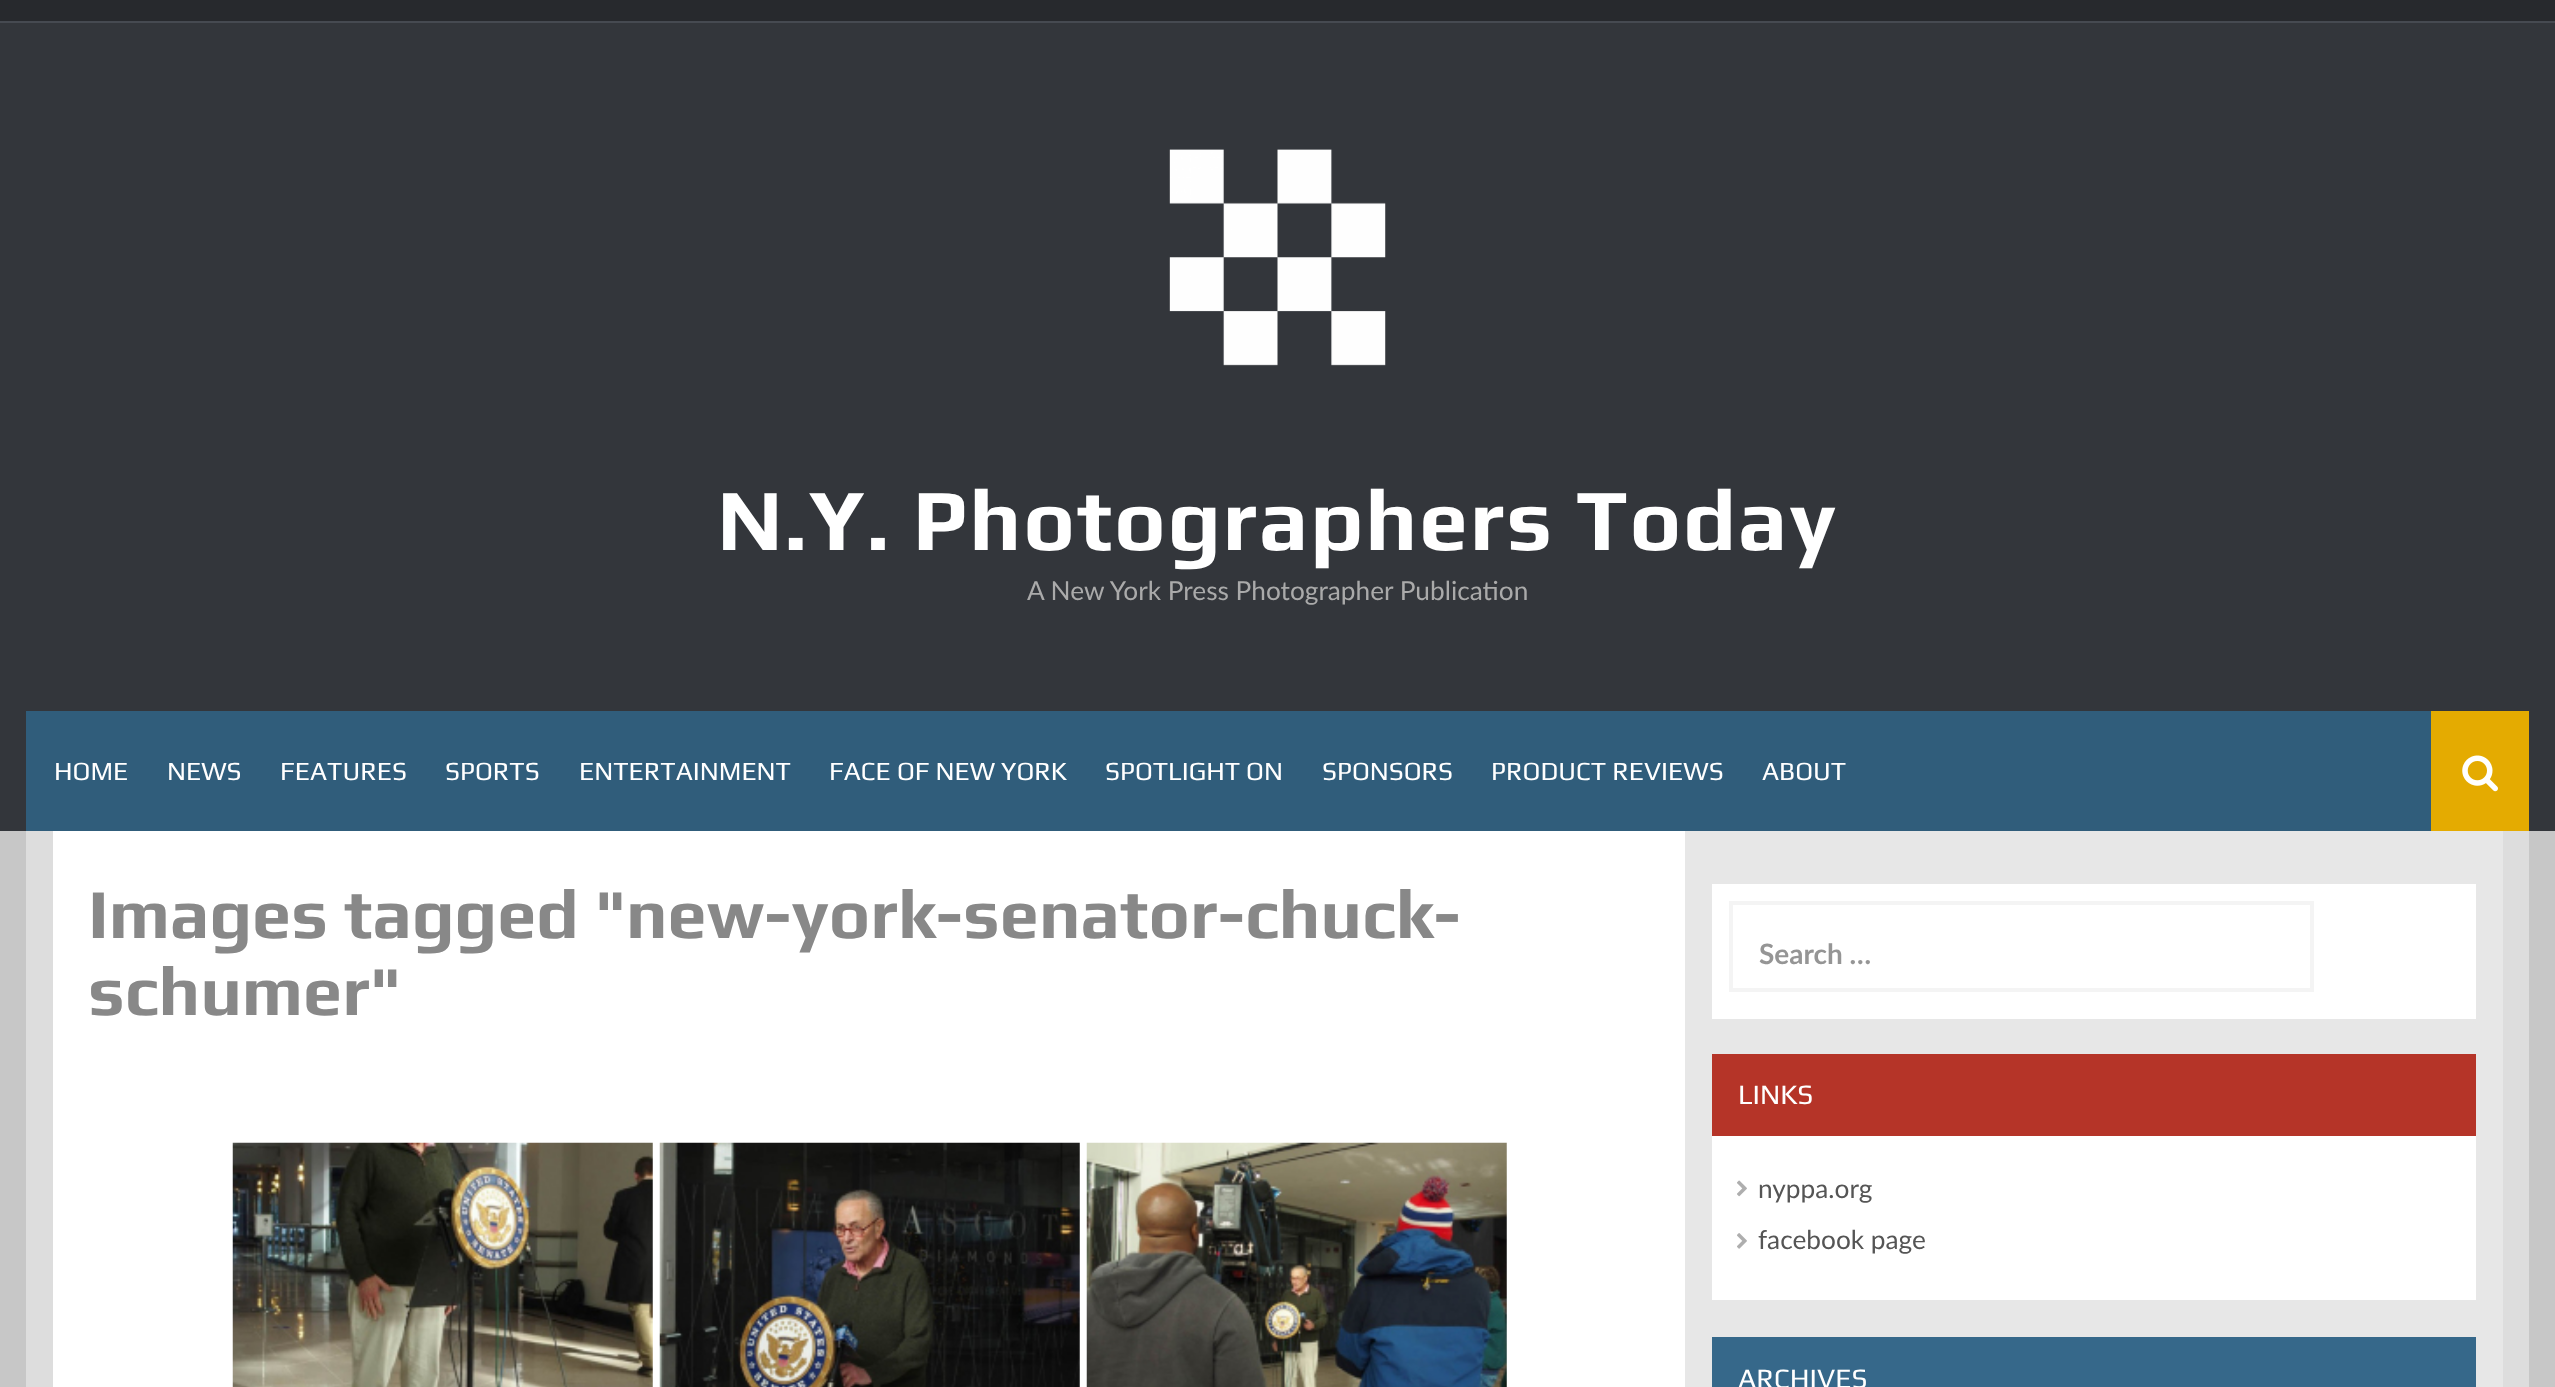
(async () => {
    const canvas = document.querySelector("canvas");
    canvas.width = 2555;
    canvas.height = 1387;
    const context = canvas.getContext("2d");
    context.miterLimit = 4;
    context.fontKerning = "normal";
    function write(s, x, y, font, color) {
        context.font = font;
        context.fillStyle = color;
        context.fillText(s, x, y);
    }
    function block(x, y, w, h, color) {
        context.fillStyle = color;
        context.fillRect(x, y, w, h);
    }
    async function photo(src, x, y, w, h) {
        const img = new Image();
        img.src = src;
        await img.decode();
        context.drawImage(img, x, y, w, h);
    }

    block(0, 0, 2555, 1387, "rgb(39, 41, 45)");
    block(0, 23, 2555, 688, "rgb(51, 54, 59)");
    block(0, 21, 2555, 2, "rgb(70, 74, 81)");
    await photo("media/1.png", 1169, 149, 217, 217);
    context.letterSpacing = "1.75px";
    write("N.Y. Photographers Today", 717, 550, "bold 87.5px Play", "rgb(255, 255, 255)");
    context.letterSpacing = "0px";
    write("A New York Press Photographer Publication", 1027, 600, "26.25px Lato", "rgb(170, 170, 170)");
    block(26, 711, 2405, 120, "rgb(48, 93, 123)");
    block(2529, 711, 26, 120, "rgb(51, 54, 59)");
    block(0, 711, 26, 120, "rgb(51, 54, 59)");
    write("HOME", 54, 780, "26.25px Play", "rgb(255, 255, 255)");
    write("NEWS", 167, 780, "26.25px Play", "rgb(255, 255, 255)");
    write("FEATURES", 280, 780, "26.25px Play", "rgb(255, 255, 255)");
    write("SPORTS", 445, 780, "26.25px Play", "rgb(255, 255, 255)");
    write("ENTERTAINMENT", 579, 780, "26.25px Play", "rgb(255, 255, 255)");
    write("FACE OF NEW YORK", 829, 780, "26.25px Play", "rgb(255, 255, 255)");
    write("SPOTLIGHT ON", 1105, 780, "26.25px Play", "rgb(255, 255, 255)");
    write("SPONSORS", 1322, 780, "26.25px Play", "rgb(255, 255, 255)");
    write("PRODUCT REVIEWS", 1491, 780, "26.25px Play", "rgb(255, 255, 255)");
    write("ABOUT", 1762, 780, "26.25px Play", "rgb(255, 255, 255)");
    block(2431, 711, 98, 120, "rgb(228, 171, 1)");
    await photo("media/2.png", 2462, 755, 36, 37);
    block(26, 831, 2503, 556, "rgb(221, 221, 221)");
    block(2529, 831, 26, 556, "rgb(199, 199, 199)");
    block(0, 831, 26, 556, "rgb(199, 199, 199)");
    block(53, 831, 1632, 556, "rgb(255, 255, 255)");
    write("Images tagged \"new-york-senator-chuck-", 88, 938, "bold 70px Play", "rgb(136, 136, 136)");
    write("schumer\"", 88, 1015, "bold 70px Play", "rgb(136, 136, 136)");
    await photo("media/3.png", 232, 1142, 421, 245);
    await photo("media/4.png", 659, 1142, 421, 245);
    await photo("media/5.png", 1086, 1142, 421, 245);
    block(1685, 831, 818, 556, "rgb(231, 231, 231)");
    block(1712, 884, 764, 135, "rgb(255, 255, 255)");
    context.strokeStyle = "rgb(244, 244, 244)";
    context.lineWidth = 4;
    context.strokeRect(1731, 903, 581, 87);
    write("Search …", 1759, 964, "bold 28px Lato", "rgb(149, 149, 149)");
    block(1712, 1136, 764, 164, "rgb(255, 255, 255)");
    block(1712, 1054, 764, 82, "rgb(181, 52, 40)");
    write("LINKS", 1738, 1104, "28px Play", "rgb(255, 255, 255)");
    await photo("media/6.png", 1737, 1180, 10, 17);
    write("nyppa.org", 1758, 1198, "26.25px Lato", "rgb(85, 85, 85)");
    await photo("media/7.png", 1737, 1233, 10, 16);
    write("facebook page", 1758, 1249, "26.25px Lato", "rgb(85, 85, 85)");
    block(1712, 1337, 764, 50, "rgb(54, 104, 138)");
    write("ARCHIVES", 1738, 1388, "28px Play", "rgb(255, 255, 255)");
})();
